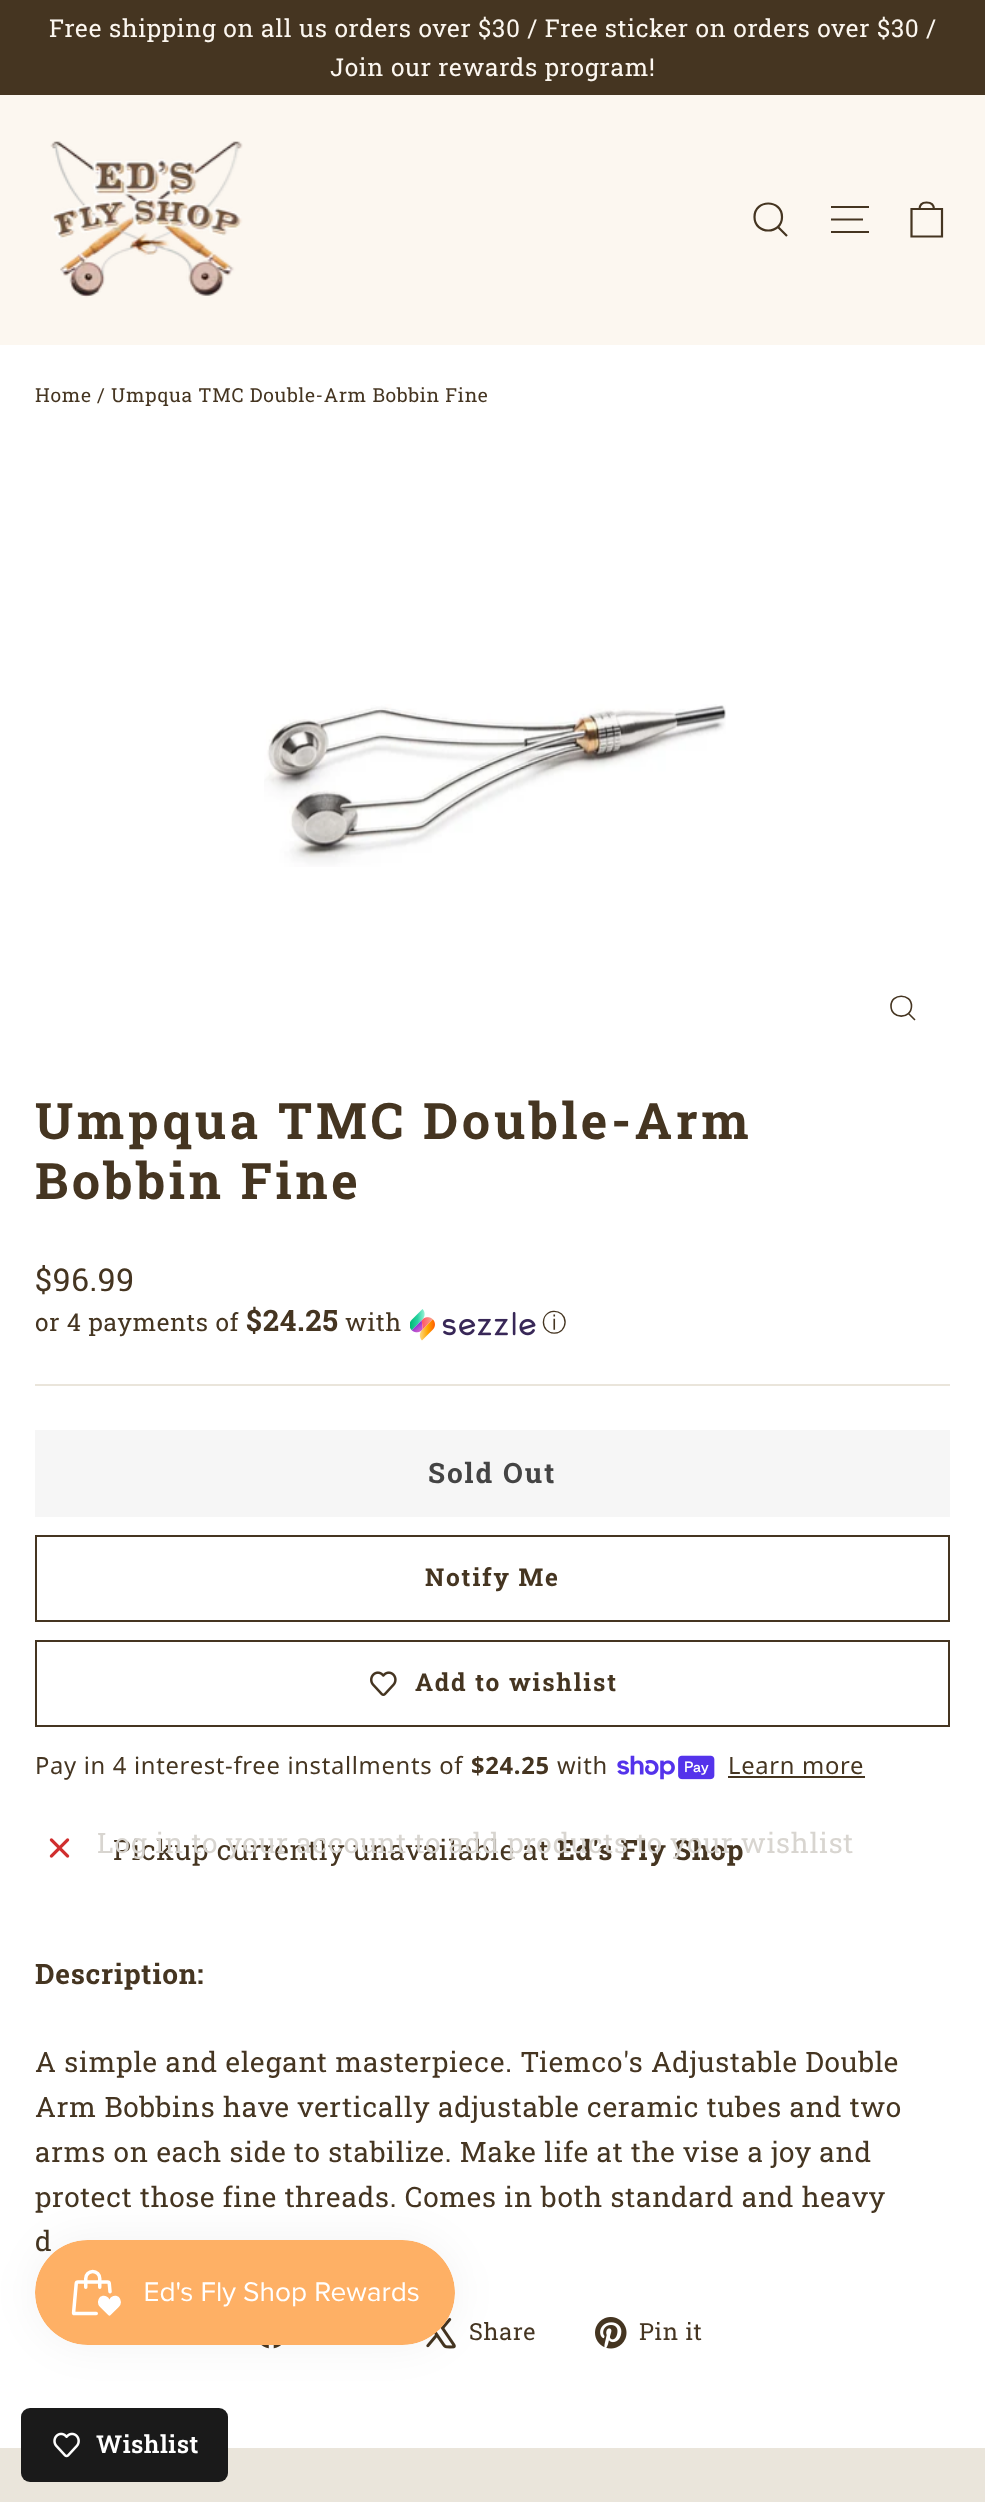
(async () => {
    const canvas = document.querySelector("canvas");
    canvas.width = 985;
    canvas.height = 2502;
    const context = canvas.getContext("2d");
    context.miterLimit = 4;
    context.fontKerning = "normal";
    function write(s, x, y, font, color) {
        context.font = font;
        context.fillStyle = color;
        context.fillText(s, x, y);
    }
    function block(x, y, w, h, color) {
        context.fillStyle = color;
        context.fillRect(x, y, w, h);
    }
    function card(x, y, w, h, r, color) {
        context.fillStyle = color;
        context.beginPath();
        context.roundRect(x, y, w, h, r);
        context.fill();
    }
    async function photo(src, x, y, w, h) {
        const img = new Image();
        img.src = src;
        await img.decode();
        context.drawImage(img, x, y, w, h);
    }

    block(0, 0, 985, 2502, "rgb(255, 255, 255)");
    block(0, 0, 985, 95, "rgb(69, 53, 33)");
    context.letterSpacing = "0.7px";
    write("Free shipping on all us orders over $30 / Free sticker on orders over $30 /", 49, 37, "24.5px Roboto Slab", "rgb(252, 247, 240)");
    write("Join our rewards program!", 330, 76, "24.5px Roboto Slab", "rgb(252, 247, 240)");
    block(0, 95, 985, 250, "rgb(252, 247, 240)");
    await photo("media/1.png", 50, 141, 193, 157);
    context.beginPath();
    context.moveTo(782, 217);
    context.bezierCurveTo(782, 235, 754.5, 235, 754.5, 217);
    context.bezierCurveTo(754.5, 199, 782, 199, 782, 217);
    context.closePath();
    context.moveTo(787, 236);
    context.lineTo(778, 227);
    context.strokeStyle = "rgb(69, 53, 33)";
    context.lineWidth = 2.2;
    context.stroke();
    context.beginPath();
    context.moveTo(831, 207);
    context.lineTo(869, 207);
    context.moveTo(831, 219.5);
    context.lineTo(863, 219.5);
    context.moveTo(831, 232);
    context.lineTo(869, 232);
    context.stroke();
    context.beginPath();
    context.moveTo(911.5, 209);
    context.lineTo(942, 209);
    context.lineTo(942, 236.5);
    context.lineTo(911.5, 236.5);
    context.closePath();
    context.moveTo(919.5, 209.5);
    context.bezierCurveTo(919.5, 204, 922.5, 202.5, 926.5, 202.5);
    context.bezierCurveTo(930.5, 202.5, 934, 204, 934, 209.5);
    context.stroke();
    write("Home / Umpqua TMC Double-Arm Bobbin Fine", 35, 402, "19.25px Roboto Slab", "rgb(69, 53, 33)");
    await photo("media/2.png", 264, 704, 462, 163);
    context.beginPath();
    context.moveTo(911.5, 1006);
    context.bezierCurveTo(911.5, 1019.5, 891, 1019.5, 891, 1006);
    context.bezierCurveTo(891, 993, 911.5, 993, 911.5, 1006);
    context.closePath();
    context.moveTo(915, 1020);
    context.lineTo(908.5, 1013.5);
    context.lineWidth = 1.6;
    context.stroke();
    context.letterSpacing = "3.75px";
    write("Umpqua TMC Double-Arm", 35, 1139, "bold 50.4px Roboto Slab", "rgb(69, 53, 33)");
    write("Bobbin Fine", 35, 1199, "bold 50.4px Roboto Slab", "rgb(69, 53, 33)");
    context.letterSpacing = "0.7px";
    write("$96.99", 35, 1291, "31.5px Roboto Slab", "rgb(69, 53, 33)");
    write("or 4 payments of", 35, 1331, "24.5px Roboto Slab", "rgb(69, 53, 33)");
    write("$24.25", 246, 1331, "bold 29.5px Roboto Slab", "rgb(69, 53, 33)");
    write("with", 345, 1331, "24.5px Roboto Slab", "rgb(69, 53, 33)");
    await photo("media/3.png", 410, 1309, 126, 32);
    write("ⓘ", 542, 1331, "500 24.5px WenQuanYi Zen Hei", "rgb(69, 53, 33)");
    block(35, 1384, 915, 2, "rgb(234, 229, 219)");
    block(35, 1430, 915, 87, "rgb(246, 246, 246)");
    context.letterSpacing = "2px";
    write("Sold Out", 428, 1483, "bold 28px Roboto Slab", "rgb(68, 68, 68)");
    context.lineWidth = 2;
    context.strokeRect(36, 1536, 913, 85);
    context.letterSpacing = "1.8px";
    write("Notify Me", 425, 1586, "bold 24.5px Roboto Slab", "rgb(69, 53, 33)");
    context.strokeRect(36, 1641, 913, 85);
    await photo("media/4.png", 370, 1671, 27, 25);
    write("Add to wishlist", 415, 1691, "bold 24.5px Roboto Slab", "rgb(69, 53, 33)");
    context.letterSpacing = "0.7px";
    write("Pay in 4 interest-free installments of", 35, 1774, "23.75px Noto Sans", "rgb(69, 53, 33)");
    write("$24.25", 471, 1774, "bold 23.75px Noto Sans", "rgb(69, 53, 33)");
    write("with", 557, 1774, "23.75px Noto Sans", "rgb(69, 53, 33)");
    await photo("media/5.png", 617, 1755, 98, 25);
    write("Learn more", 728, 1774, "23.75px Noto Sans", "rgb(69, 53, 33)");
    block(728, 1776, 137, 2, "rgb(69, 53, 33)");
    await photo("media/6.png", 49, 1838, 21, 20);
    write("Pickup currently unavailable at", 113, 1860, "28px Roboto Slab", "rgb(69, 53, 33)");
    write("Ed's Fly Shop", 557, 1860, "bold 28px Roboto Slab", "rgb(69, 53, 33)");
    write("Description:", 35, 1984, "bold 28px Roboto Slab", "rgb(69, 53, 33)");
    write("A simple and elegant masterpiece. Tiemco's Adjustable Double", 35, 2072, "28px Roboto Slab", "rgb(69, 53, 33)");
    write("Arm Bobbins have vertically adjustable ceramic tubes and two", 35, 2117, "28px Roboto Slab", "rgb(69, 53, 33)");
    write("arms on each side to stabilize. Make life at the vise a joy and", 35, 2162, "28px Roboto Slab", "rgb(69, 53, 33)");
    write("protect those fine threads. Comes in both standard and heavy", 35, 2207, "28px Roboto Slab", "rgb(69, 53, 33)");
    write("d", 35, 2251, "28px Roboto Slab", "rgb(69, 53, 33)");
    await photo("media/7.png", 426, 2318, 30, 31);
    write("Share", 469, 2340, "23.5px Roboto Slab", "rgb(69, 53, 33)");
    await photo("media/8.png", 595, 2317, 32, 32);
    write("Pin it", 639, 2340, "23.5px Roboto Slab", "rgb(69, 53, 33)");
    await photo("media/9.png", 261, 2345, 20, 4);
    block(0, 2448, 985, 54, "rgb(234, 229, 219)");
    write("Log in to your account to add products to your wishlist", 97, 1853, "28px Roboto Slab", "rgb(216, 213, 208)");
    card(21, 2408, 207, 74, 9, "rgb(26, 26, 26)");
    await photo("media/10.png", 53, 2432, 27, 26);
    context.letterSpacing = "0.5px";
    write("Wishlist", 96, 2453, "600 24.5px Roboto Slab", "rgb(255, 255, 255)");
    context.fillStyle = "rgba(0, 0, 0, 0.05)";
    context.filter = "blur(22px)";
    context.beginPath();
    context.roundRect(35, 2240, 420, 105, 52.5);
    context.fill();
    context.filter = "none";
    await photo("media/11.png", 35, 2240, 420, 105);
})();
